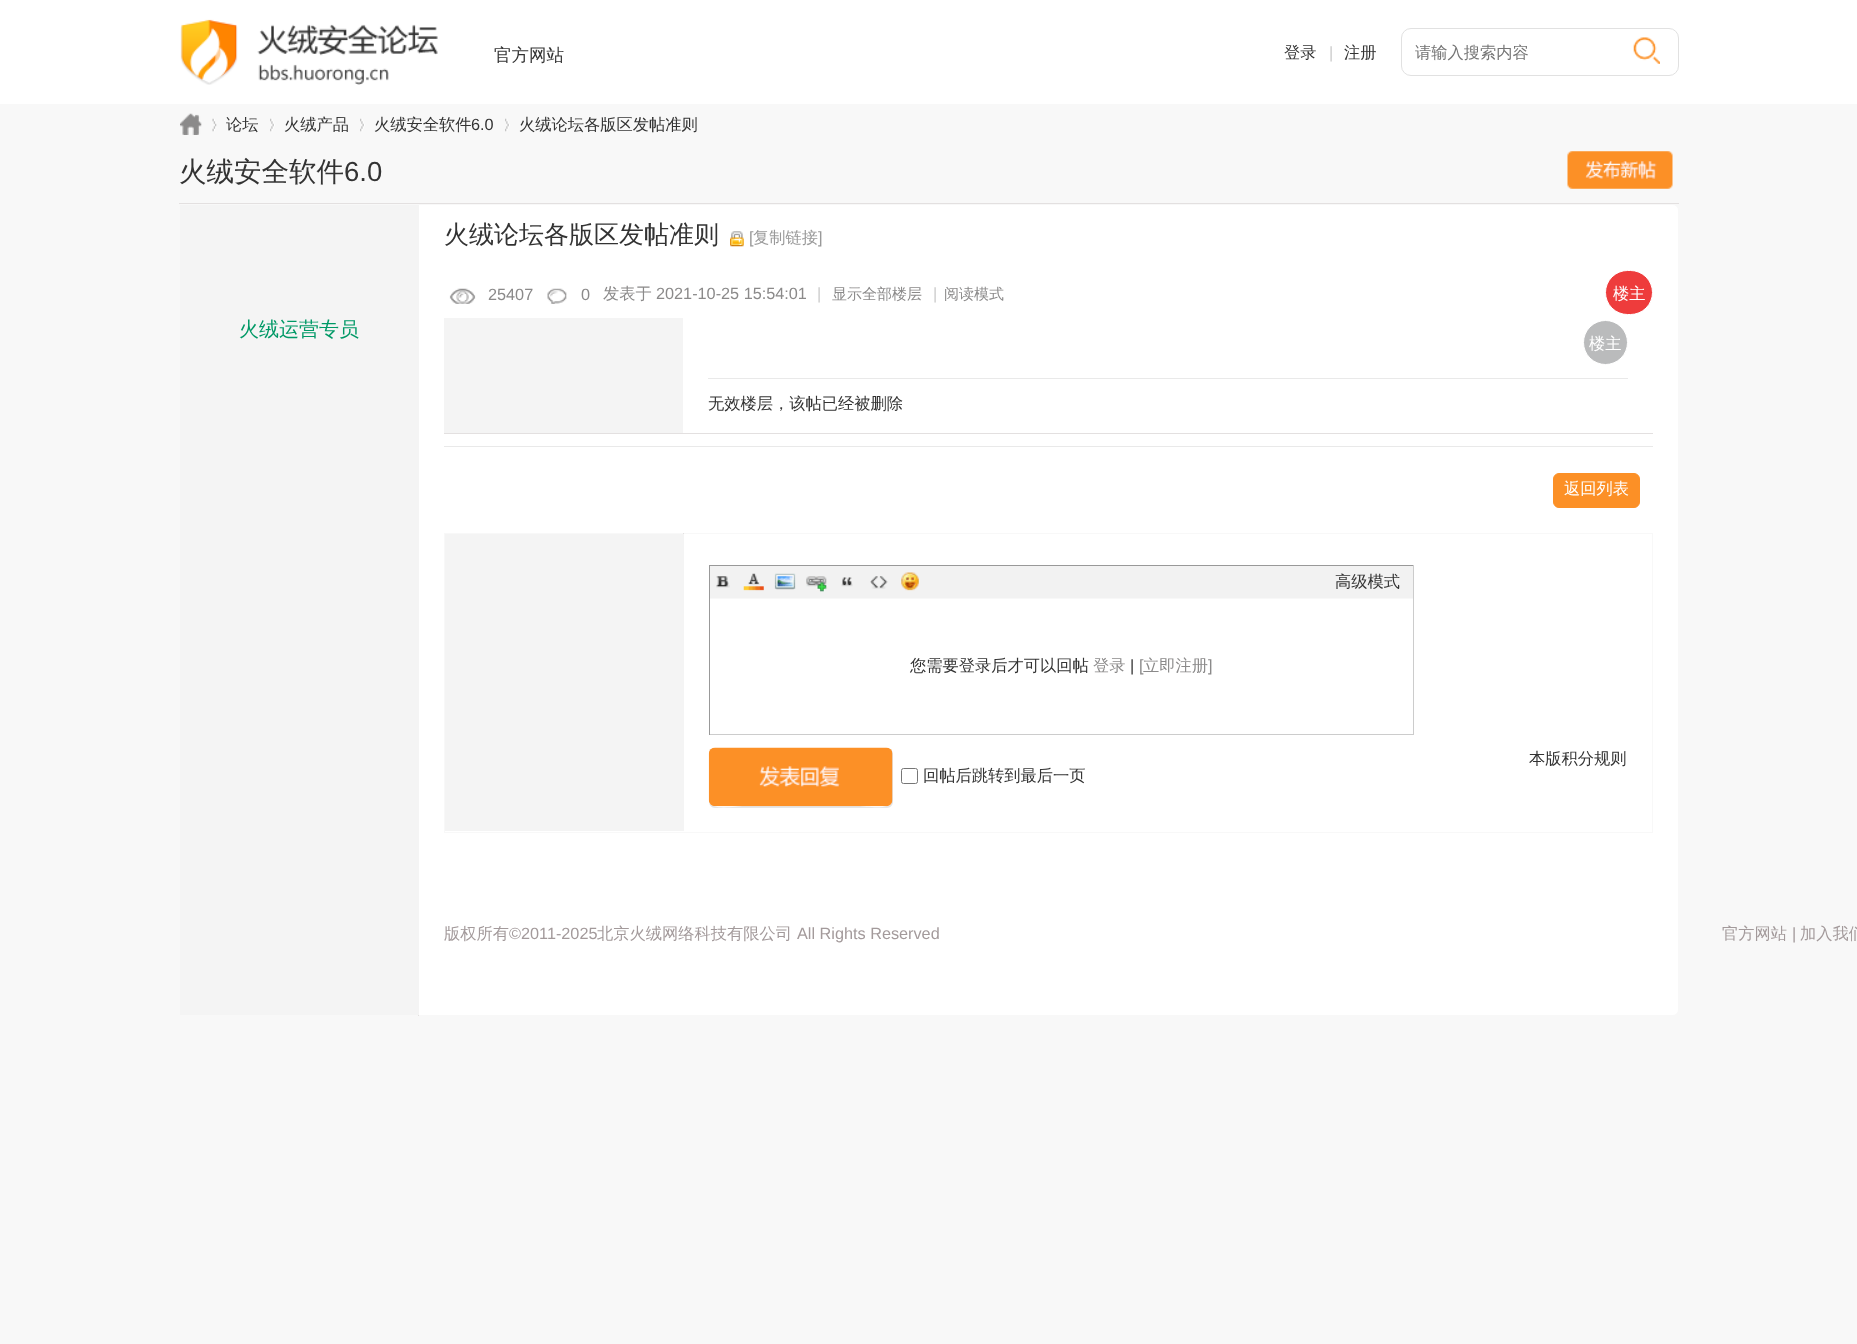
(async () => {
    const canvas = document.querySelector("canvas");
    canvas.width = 1857;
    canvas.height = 1344;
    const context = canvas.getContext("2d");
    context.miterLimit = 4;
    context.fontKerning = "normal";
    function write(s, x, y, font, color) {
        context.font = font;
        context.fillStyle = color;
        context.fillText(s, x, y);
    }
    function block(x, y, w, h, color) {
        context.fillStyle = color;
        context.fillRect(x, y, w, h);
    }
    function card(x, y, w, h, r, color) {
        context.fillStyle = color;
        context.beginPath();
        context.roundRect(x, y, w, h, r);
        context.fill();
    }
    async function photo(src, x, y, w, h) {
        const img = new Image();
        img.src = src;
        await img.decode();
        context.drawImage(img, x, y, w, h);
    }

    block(0, 0, 1857, 1344, "rgb(248, 248, 248)");
    block(0, 0, 1857, 104, "rgb(255, 255, 255)");
    await photo("media/1.png", 180, 19, 258, 66);
    write("官方网站", 494, 61, "500 17.5px WenQuanYi Zen Hei", "rgb(51, 51, 51)");
    write("登录", 1284, 58, "500 16.25px WenQuanYi Zen Hei", "rgb(51, 51, 51)");
    write("|", 1329, 58, "16.25px Liberation Sans", "rgb(204, 204, 204)");
    write("注册", 1344, 58, "500 16.25px WenQuanYi Zen Hei", "rgb(51, 51, 51)");
    context.beginPath();
    context.roundRect(1401.5, 28.5, 277, 47, 9.5);
    context.strokeStyle = "rgb(225, 225, 225)";
    context.stroke();
    write("请输入搜索内容", 1415, 58, "500 16.25px WenQuanYi Zen Hei", "rgb(117, 117, 117)");
    await photo("media/2.png", 1633, 37, 27, 27);
    await photo("media/3.png", 180, 113, 22, 22);
    await photo("media/4.png", 212, 118, 5, 14);
    write("论坛", 226, 130, "500 16.25px WenQuanYi Zen Hei", "rgb(51, 51, 51)");
    await photo("media/5.png", 270, 118, 5, 14);
    write("火绒产品", 284, 130, "500 16.25px WenQuanYi Zen Hei", "rgb(51, 51, 51)");
    await photo("media/5.png", 360, 118, 5, 14);
    write("火绒安全软件", 374, 130, "500 16.25px WenQuanYi Zen Hei", "rgb(51, 51, 51)");
    write("6.0", 471, 130, "16.25px Liberation Sans", "rgb(51, 51, 51)");
    await photo("media/6.png", 505, 118, 5, 14);
    write("火绒论坛各版区发帖准则", 519, 130, "500 16.25px WenQuanYi Zen Hei", "rgb(51, 51, 51)");
    block(179, 203, 1500, 1, "rgb(227, 224, 224)");
    write("火绒安全软件", 179, 181, "500 27.5px WenQuanYi Zen Hei", "rgb(51, 51, 51)");
    write("6.0", 344, 181, "27.5px Liberation Sans", "rgb(51, 51, 51)");
    await photo("media/7.png", 1567, 151, 106, 38);
    context.fillStyle = "rgb(255, 255, 255)";
    context.beginPath();
    context.roundRect(179.5, 204.5, 1499, 811, 5.5);
    context.fill();
    context.strokeStyle = "rgb(248, 248, 248)";
    context.stroke();
    block(180, 205, 239, 810, "rgb(244, 244, 244)");
    write("火绒论坛各版区发帖准则", 444, 243, "500 25px WenQuanYi Zen Hei", "rgb(51, 51, 51)");
    await photo("media/8.png", 730, 231, 14, 16);
    write("[", 749, 243, "16.25px Liberation Sans", "rgb(153, 153, 153)");
    write("复制链接", 753, 243, "500 16.25px WenQuanYi Zen Hei", "rgb(153, 153, 153)");
    write("]", 818, 243, "16.25px Liberation Sans", "rgb(153, 153, 153)");
    block(418, 1015, 1, 1, "rgb(227, 224, 224)");
    write("火绒运营专员", 239, 336, "500 20px WenQuanYi Zen Hei", "rgb(0, 153, 102)");
    block(444, 446, 1209, 1, "rgb(233, 233, 233)");
    await photo("media/9.png", 449, 288, 27, 16);
    write("25407", 488, 300, "16.25px Liberation Sans", "rgb(139, 138, 138)");
    await photo("media/10.png", 547, 288, 20, 16);
    write("0", 581, 300, "16.25px Liberation Sans", "rgb(139, 138, 138)");
    write("发表于", 603, 299, "500 16.25px WenQuanYi Zen Hei", "rgb(139, 138, 138)");
    write("2021-10-25 15:54:01", 656, 299, "16.25px Liberation Sans", "rgb(139, 138, 138)");
    write("|", 817, 299, "16.25px Liberation Sans", "rgb(204, 204, 204)");
    write("显示全部楼层", 832, 299, "500 15px WenQuanYi Zen Hei", "rgb(139, 138, 138)");
    write("|", 933, 299, "16.25px Liberation Sans", "rgb(204, 204, 204)");
    write("阅读模式", 944, 299, "500 15px WenQuanYi Zen Hei", "rgb(139, 138, 138)");
    context.fillStyle = "rgb(238, 60, 60)";
    context.beginPath();
    context.roundRect(1605.5, 270.5, 47, 44, 22);
    context.fill();
    context.strokeStyle = "rgb(255, 255, 255)";
    context.stroke();
    write("楼主", 1613, 299, "500 16.25px WenQuanYi Zen Hei", "rgb(255, 255, 255)");
    block(444, 318, 239, 115, "rgb(244, 244, 244)");
    block(708, 378, 920, 1, "rgb(233, 233, 233)");
    context.fillStyle = "rgb(186, 187, 188)";
    context.beginPath();
    context.arc(1605.5, 342.5, 22, 0, Math.PI * 2);
    context.fill();
    context.stroke();
    write("楼主", 1589, 349, "500 16.25px WenQuanYi Zen Hei", "rgb(255, 255, 255)");
    write("无效楼层，该帖已经被删除", 708, 409, "500 16.25px WenQuanYi Zen Hei", "rgb(51, 51, 51)");
    block(444, 433, 1209, 1, "rgb(227, 224, 224)");
    context.fillStyle = "rgb(252, 144, 38)";
    context.beginPath();
    context.roundRect(1553.5, 473.5, 86, 34, 5.5);
    context.fill();
    context.strokeStyle = "rgb(252, 144, 38)";
    context.stroke();
    write("返回列表", 1564, 494, "500 16.25px WenQuanYi Zen Hei", "rgb(255, 255, 255)");
    context.strokeStyle = "rgb(248, 248, 248)";
    context.strokeRect(444.5, 533.5, 1208, 299);
    block(683, 533, 1, 1, "rgb(227, 224, 224)");
    block(445, 534, 239, 297, "rgb(244, 244, 244)");
    block(709, 565, 705, 1, "rgb(153, 153, 153)");
    block(1413, 565, 1, 170, "rgb(204, 204, 204)");
    block(709, 734, 705, 1, "rgb(204, 204, 204)");
    block(709, 565, 1, 170, "rgb(153, 153, 153)");
    block(710, 566, 703, 32, "rgb(242, 242, 242)");
    block(710, 598, 703, 1, "rgb(248, 248, 248)");
    await photo("media/11.png", 716, 576, 14, 12);
    await photo("media/12.png", 743, 573, 21, 18);
    await photo("media/13.png", 774, 573, 22, 17);
    await photo("media/14.png", 806, 576, 22, 16);
    await photo("media/15.png", 841, 577, 12, 10);
    await photo("media/16.png", 870, 576, 18, 13);
    await photo("media/17.png", 900, 572, 19, 19);
    write("高级模式", 1335, 587, "500 16.25px WenQuanYi Zen Hei", "rgb(51, 51, 51)");
    write("您需要登录后才可以回帖", 910, 671, "500 16.25px WenQuanYi Zen Hei", "rgb(51, 51, 51)");
    write("登录", 1093, 671, "500 16.25px WenQuanYi Zen Hei", "rgb(139, 138, 138)");
    write("|", 1130, 671, "16.25px Liberation Sans", "rgb(51, 51, 51)");
    write("[", 1139, 671, "16.25px Liberation Sans", "rgb(139, 138, 138)");
    write("立即注册", 1143, 671, "500 16.25px WenQuanYi Zen Hei", "rgb(139, 138, 138)");
    write("]", 1208, 671, "16.25px Liberation Sans", "rgb(139, 138, 138)");
    context.fillStyle = "rgb(229, 229, 229)";
    context.beginPath();
    context.moveTo(709, 802);
    context.bezierCurveTo(709, 805, 712, 808, 715, 808);
    context.lineTo(887, 808);
    context.bezierCurveTo(890, 808, 893, 805, 893, 802);
    context.lineTo(893, 755);
    context.lineTo(892, 752);
    context.lineTo(892, 801);
    context.bezierCurveTo(890, 811, 866, 806, 858, 806);
    context.lineTo(744, 806);
    context.bezierCurveTo(737, 806, 712, 811, 709, 802);
    context.closePath();
    context.fill();
    card(709, 748, 184, 58, 6, "rgb(229, 229, 229)");
    await photo("media/18.png", 708, 747, 185, 60);
    write("本版积分规则", 1529, 764, "500 16.25px WenQuanYi Zen Hei", "rgb(51, 51, 51)");
    context.beginPath();
    context.roundRect(901.5, 768.5, 16, 15, 2);
    context.strokeStyle = "rgb(118, 118, 118)";
    context.stroke();
    write("回帖后跳转到最后一页", 923, 781, "500 16.25px WenQuanYi Zen Hei", "rgb(51, 51, 51)");
    write("版权所有", 444, 939, "500 16.25px WenQuanYi Zen Hei", "rgb(163, 154, 155)");
    write("©2011-2025", 509, 939, "16.25px Liberation Sans", "rgb(163, 154, 155)");
    write("北京火绒网络科技有限公司", 597, 939, "500 16.25px WenQuanYi Zen Hei", "rgb(163, 154, 155)");
    write("All Rights Reserved", 797, 939, "16.25px Liberation Sans", "rgb(163, 154, 155)");
    write("官方网站", 1722, 939, "500 16.25px WenQuanYi Zen Hei", "rgb(163, 154, 155)");
    write("|", 1792, 939, "16.25px Liberation Sans", "rgb(163, 154, 155)");
    write("加入我们", 1800, 939, "500 16.25px WenQuanYi Zen Hei", "rgb(163, 154, 155)");
})();
